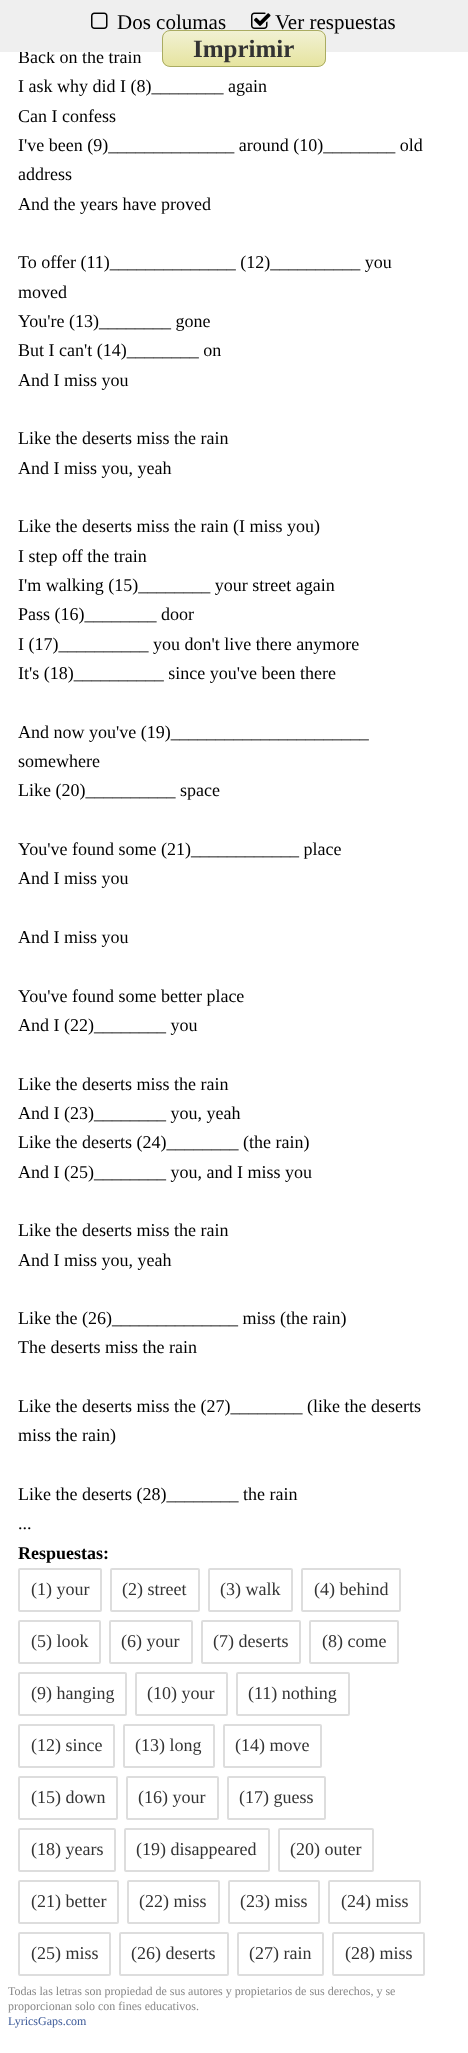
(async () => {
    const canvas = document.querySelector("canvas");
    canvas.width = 468;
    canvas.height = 2053;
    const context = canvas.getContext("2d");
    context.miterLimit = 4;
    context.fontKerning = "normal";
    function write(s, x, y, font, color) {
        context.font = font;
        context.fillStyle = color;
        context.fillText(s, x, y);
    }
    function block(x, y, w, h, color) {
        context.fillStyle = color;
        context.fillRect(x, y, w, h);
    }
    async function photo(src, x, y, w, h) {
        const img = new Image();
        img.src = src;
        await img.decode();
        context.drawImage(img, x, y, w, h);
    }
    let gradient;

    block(0, 0, 468, 2053, "rgb(255, 255, 255)");
    write("Back on the train", 18, 63, "18px Liberation Serif", "rgb(0, 0, 0)");
    block(0, 0, 468, 52, "rgb(239, 239, 239)");
    await photo("media/1.png", 91, 12, 17, 17);
    write("Dos columas", 117, 29, "21px Liberation Serif", "rgb(0, 0, 0)");
    await photo("media/2.png", 251, 12, 20, 17);
    write("Ver respuestas", 275, 29, "21px Liberation Serif", "rgb(0, 0, 0)");
    context.save();
    context.beginPath();
    context.roundRect(162, 30, 164, 37, 8);
    context.clip();
    gradient = context.createLinearGradient(163, 31, 163, 66);
    gradient.addColorStop(0, "rgb(241, 241, 212)");
    gradient.addColorStop(1, "rgb(230, 228, 159)");
    context.fillStyle = gradient;
    context.fillRect(162, 31, 164, 35);
    context.restore();
    context.beginPath();
    context.roundRect(162.5, 30.5, 163, 36, 7.5);
    context.strokeStyle = "rgb(170, 172, 98)";
    context.stroke();
    write("Imprimir", 193, 57, "bold 25px Liberation Serif", "rgb(51, 51, 51)");
    write("I ask why did I (8)________ again", 18, 92, "18px Liberation Serif", "rgb(0, 0, 0)");
    write("Can I confess", 18, 122, "18px Liberation Serif", "rgb(0, 0, 0)");
    write("I've been (9)______________ around (10)________ old", 18, 151, "18px Liberation Serif", "rgb(0, 0, 0)");
    write("address", 18, 180, "18px Liberation Serif", "rgb(0, 0, 0)");
    write("And the years have proved", 18, 210, "18px Liberation Serif", "rgb(0, 0, 0)");
    write("To offer (11)______________ (12)__________ you", 18, 268, "18px Liberation Serif", "rgb(0, 0, 0)");
    write("moved", 18, 298, "18px Liberation Serif", "rgb(0, 0, 0)");
    write("You're (13)________ gone", 18, 327, "18px Liberation Serif", "rgb(0, 0, 0)");
    write("But I can't (14)________ on", 18, 356, "18px Liberation Serif", "rgb(0, 0, 0)");
    write("And I miss you", 18, 386, "18px Liberation Serif", "rgb(0, 0, 0)");
    write("Like the deserts miss the rain", 18, 444, "18px Liberation Serif", "rgb(0, 0, 0)");
    write("And I miss you, yeah", 18, 474, "18px Liberation Serif", "rgb(0, 0, 0)");
    write("Like the deserts miss the rain (I miss you)", 18, 532, "18px Liberation Serif", "rgb(0, 0, 0)");
    write("I step off the train", 18, 562, "18px Liberation Serif", "rgb(0, 0, 0)");
    write("I'm walking (15)________ your street again", 18, 591, "18px Liberation Serif", "rgb(0, 0, 0)");
    write("Pass (16)________ door", 18, 620, "18px Liberation Serif", "rgb(0, 0, 0)");
    write("I (17)__________ you don't live there anymore", 18, 650, "18px Liberation Serif", "rgb(0, 0, 0)");
    write("It's (18)__________ since you've been there", 18, 679, "18px Liberation Serif", "rgb(0, 0, 0)");
    write("And now you've (19)______________________", 18, 738, "18px Liberation Serif", "rgb(0, 0, 0)");
    write("somewhere", 18, 767, "18px Liberation Serif", "rgb(0, 0, 0)");
    write("Like (20)__________ space", 18, 796, "18px Liberation Serif", "rgb(0, 0, 0)");
    write("You've found some (21)____________ place", 18, 855, "18px Liberation Serif", "rgb(0, 0, 0)");
    write("And I miss you", 18, 884, "18px Liberation Serif", "rgb(0, 0, 0)");
    write("And I miss you", 18, 943, "18px Liberation Serif", "rgb(0, 0, 0)");
    write("You've found some better place", 18, 1002, "18px Liberation Serif", "rgb(0, 0, 0)");
    write("And I (22)________ you", 18, 1031, "18px Liberation Serif", "rgb(0, 0, 0)");
    write("Like the deserts miss the rain", 18, 1090, "18px Liberation Serif", "rgb(0, 0, 0)");
    write("And I (23)________ you, yeah", 18, 1119, "18px Liberation Serif", "rgb(0, 0, 0)");
    write("Like the deserts (24)________ (the rain)", 18, 1148, "18px Liberation Serif", "rgb(0, 0, 0)");
    write("And I (25)________ you, and I miss you", 18, 1178, "18px Liberation Serif", "rgb(0, 0, 0)");
    write("Like the deserts miss the rain", 18, 1236, "18px Liberation Serif", "rgb(0, 0, 0)");
    write("And I miss you, yeah", 18, 1266, "18px Liberation Serif", "rgb(0, 0, 0)");
    write("Like the (26)______________ miss (the rain)", 18, 1324, "18px Liberation Serif", "rgb(0, 0, 0)");
    write("The deserts miss the rain", 18, 1353, "18px Liberation Serif", "rgb(0, 0, 0)");
    write("Like the deserts miss the (27)________ (like the deserts", 18, 1412, "18px Liberation Serif", "rgb(0, 0, 0)");
    write("miss the rain)", 18, 1441, "18px Liberation Serif", "rgb(0, 0, 0)");
    write("Like the deserts (28)________ the rain", 18, 1500, "18px Liberation Serif", "rgb(0, 0, 0)");
    write("...", 18, 1529, "18px Liberation Serif", "rgb(0, 0, 0)");
    write("Respuestas:", 18, 1559, "bold 18px Liberation Serif", "rgb(0, 0, 0)");
    context.beginPath();
    context.roundRect(19, 1569, 82, 42, 1);
    context.strokeStyle = "rgb(221, 221, 221)";
    context.lineWidth = 2;
    context.stroke();
    write("(1) your", 31, 1595, "18px Liberation Serif", "rgb(51, 51, 51)");
    context.beginPath();
    context.roundRect(111, 1569, 88, 42, 1);
    context.stroke();
    write("(2) street", 122, 1595, "18px Liberation Serif", "rgb(51, 51, 51)");
    context.beginPath();
    context.roundRect(209, 1569, 83, 42, 1);
    context.stroke();
    write("(3) walk", 220, 1595, "18px Liberation Serif", "rgb(51, 51, 51)");
    context.beginPath();
    context.roundRect(302, 1569, 98, 42, 1);
    context.stroke();
    write("(4) behind", 314, 1595, "18px Liberation Serif", "rgb(51, 51, 51)");
    context.beginPath();
    context.roundRect(19, 1621, 81, 42, 1);
    context.stroke();
    write("(5) look", 31, 1647, "18px Liberation Serif", "rgb(51, 51, 51)");
    context.beginPath();
    context.roundRect(110, 1621, 82, 42, 1);
    context.stroke();
    write("(6) your", 121, 1647, "18px Liberation Serif", "rgb(51, 51, 51)");
    context.beginPath();
    context.roundRect(202, 1621, 98, 42, 1);
    context.stroke();
    write("(7) deserts", 213, 1647, "18px Liberation Serif", "rgb(51, 51, 51)");
    context.beginPath();
    context.roundRect(310, 1621, 88, 42, 1);
    context.stroke();
    write("(8) come", 322, 1647, "18px Liberation Serif", "rgb(51, 51, 51)");
    context.beginPath();
    context.roundRect(19, 1673, 107, 42, 1);
    context.stroke();
    write("(9) hanging", 31, 1699, "18px Liberation Serif", "rgb(51, 51, 51)");
    context.beginPath();
    context.roundRect(136, 1673, 91, 42, 1);
    context.stroke();
    write("(10) your", 147, 1699, "18px Liberation Serif", "rgb(51, 51, 51)");
    context.beginPath();
    context.roundRect(237, 1673, 112, 42, 1);
    context.stroke();
    write("(11) nothing", 248, 1699, "18px Liberation Serif", "rgb(51, 51, 51)");
    context.beginPath();
    context.roundRect(19, 1725, 95, 42, 1);
    context.stroke();
    write("(12) since", 31, 1751, "18px Liberation Serif", "rgb(51, 51, 51)");
    context.beginPath();
    context.roundRect(124, 1725, 90, 42, 1);
    context.stroke();
    write("(13) long", 135, 1751, "18px Liberation Serif", "rgb(51, 51, 51)");
    context.beginPath();
    context.roundRect(224, 1725, 97, 42, 1);
    context.stroke();
    write("(14) move", 235, 1751, "18px Liberation Serif", "rgb(51, 51, 51)");
    context.beginPath();
    context.roundRect(19, 1777, 98, 42, 1);
    context.stroke();
    write("(15) down", 31, 1803, "18px Liberation Serif", "rgb(51, 51, 51)");
    context.beginPath();
    context.roundRect(127, 1777, 91, 42, 1);
    context.stroke();
    write("(16) your", 138, 1803, "18px Liberation Serif", "rgb(51, 51, 51)");
    context.beginPath();
    context.roundRect(228, 1777, 97, 42, 1);
    context.stroke();
    write("(17) guess", 239, 1803, "18px Liberation Serif", "rgb(51, 51, 51)");
    context.beginPath();
    context.roundRect(19, 1829, 96, 42, 1);
    context.stroke();
    write("(18) years", 31, 1855, "18px Liberation Serif", "rgb(51, 51, 51)");
    context.beginPath();
    context.roundRect(125, 1829, 144, 42, 1);
    context.stroke();
    write("(19) disappeared", 136, 1855, "18px Liberation Serif", "rgb(51, 51, 51)");
    context.beginPath();
    context.roundRect(279, 1829, 94, 42, 1);
    context.stroke();
    write("(20) outer", 290, 1855, "18px Liberation Serif", "rgb(51, 51, 51)");
    context.beginPath();
    context.roundRect(19, 1881, 99, 42, 1);
    context.stroke();
    write("(21) better", 31, 1907, "18px Liberation Serif", "rgb(51, 51, 51)");
    context.beginPath();
    context.roundRect(128, 1881, 91, 42, 1);
    context.stroke();
    write("(22) miss", 139, 1907, "18px Liberation Serif", "rgb(51, 51, 51)");
    context.beginPath();
    context.roundRect(229, 1881, 90, 42, 1);
    context.stroke();
    write("(23) miss", 240, 1907, "18px Liberation Serif", "rgb(51, 51, 51)");
    context.beginPath();
    context.roundRect(329, 1881, 91, 42, 1);
    context.stroke();
    write("(24) miss", 341, 1907, "18px Liberation Serif", "rgb(51, 51, 51)");
    context.beginPath();
    context.roundRect(19, 1933, 91, 42, 1);
    context.stroke();
    write("(25) miss", 31, 1959, "18px Liberation Serif", "rgb(51, 51, 51)");
    context.beginPath();
    context.roundRect(120, 1933, 108, 42, 1);
    context.stroke();
    write("(26) deserts", 131, 1959, "18px Liberation Serif", "rgb(51, 51, 51)");
    context.beginPath();
    context.roundRect(238, 1933, 85, 42, 1);
    context.stroke();
    write("(27) rain", 249, 1959, "18px Liberation Serif", "rgb(51, 51, 51)");
    context.beginPath();
    context.roundRect(333, 1933, 91, 42, 1);
    context.stroke();
    write("(28) miss", 345, 1959, "18px Liberation Serif", "rgb(51, 51, 51)");
    write("Todas las letras son propiedad de sus autores y propietarios de sus derechos, y se", 8, 1995, "12px Liberation Serif", "rgb(136, 136, 136)");
    write("proporcionan solo con fines educativos.", 8, 2010, "12px Liberation Serif", "rgb(136, 136, 136)");
    write("LyricsGaps.com", 8, 2025, "12px Liberation Serif", "rgb(59, 89, 152)");
})();
